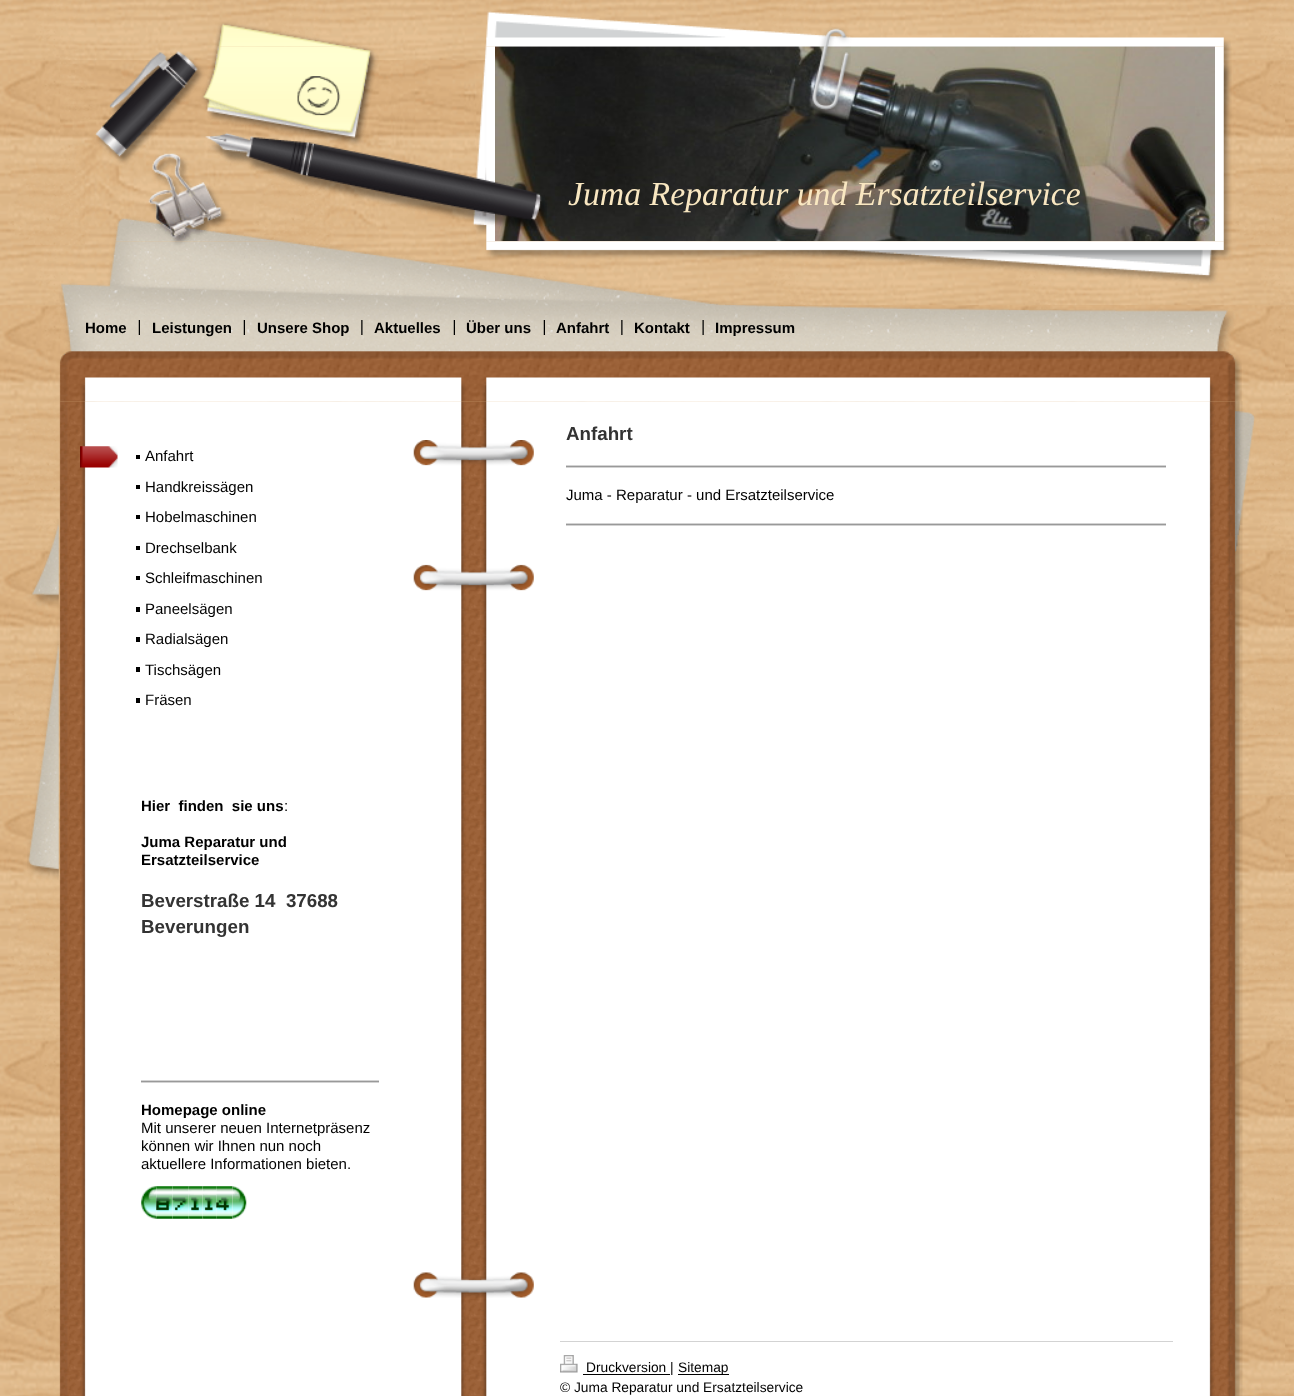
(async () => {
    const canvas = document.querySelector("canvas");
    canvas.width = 1294;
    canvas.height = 1396;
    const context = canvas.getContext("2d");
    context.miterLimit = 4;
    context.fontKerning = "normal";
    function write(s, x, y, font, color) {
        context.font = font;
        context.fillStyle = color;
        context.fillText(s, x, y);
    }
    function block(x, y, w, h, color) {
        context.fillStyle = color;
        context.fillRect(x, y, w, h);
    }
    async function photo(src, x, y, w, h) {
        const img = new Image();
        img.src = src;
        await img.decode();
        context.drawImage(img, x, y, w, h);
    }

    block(0, 0, 1294, 1396, "rgb(255, 255, 255)");
    await photo("media/1.png", 0, 0, 1294, 1396);
    block(495, 46, 720, 1, "rgb(238, 238, 238)");
    await photo("media/8.png", 495, 46, 720, 196);
    await photo("media/2.png", 215, 11, 1016, 36);
    await photo("media/16.png", 59, 401, 1184, 995);
    await photo("media/7.png", 59, 241, 1183, 161);
    await photo("media/3.png", 95, 46, 400, 196);
    await photo("media/4.png", 495, 182, 52, 49);
    await photo("media/5.png", 810, 46, 41, 66);
    await photo("media/6.png", 1215, 46, 17, 196);
    write("Juma Reparatur und Ersatzteilservice", 568, 205, "italic 33.75px Liberation Serif", "rgb(249, 231, 193)");
    write("Home", 85, 333, "bold 15px Liberation Sans", "rgb(0, 0, 0)");
    await photo("media/9.png", 138, 320, 2, 15);
    write("Leistungen", 152, 333, "bold 15px Liberation Sans", "rgb(0, 0, 0)");
    await photo("media/10.png", 243, 320, 2, 15);
    write("Unsere Shop", 257, 333, "bold 15px Liberation Sans", "rgb(0, 0, 0)");
    await photo("media/11.png", 361, 320, 2, 15);
    write("Aktuelles", 374, 333, "bold 15px Liberation Sans", "rgb(0, 0, 0)");
    await photo("media/12.png", 453, 320, 2, 15);
    write("Über uns", 466, 333, "bold 15px Liberation Sans", "rgb(0, 0, 0)");
    await photo("media/13.png", 543, 320, 2, 15);
    write("Anfahrt", 556, 333, "bold 15px Liberation Sans", "rgb(0, 0, 0)");
    await photo("media/14.png", 621, 320, 2, 15);
    write("Kontakt", 634, 333, "bold 15px Liberation Sans", "rgb(0, 0, 0)");
    await photo("media/15.png", 702, 320, 2, 15);
    write("Impressum", 715, 333, "bold 15px Liberation Sans", "rgb(0, 0, 0)");
    await photo("media/17.png", 27, 519, 32, 361);
    await photo("media/18.png", 80, 446, 38, 22);
    write("Anfahrt", 145, 461, "15px Liberation Sans", "rgb(0, 0, 0)");
    block(136, 455, 4, 4, "rgb(0, 0, 0)");
    write("Handkreissägen", 145, 492, "15px Liberation Sans", "rgb(0, 0, 0)");
    block(136, 485, 4, 4, "rgb(0, 0, 0)");
    write("Hobelmaschinen", 145, 522, "15px Liberation Sans", "rgb(0, 0, 0)");
    block(136, 515, 4, 4, "rgb(0, 0, 0)");
    write("Drechselbank", 145, 553, "15px Liberation Sans", "rgb(0, 0, 0)");
    block(136, 546, 4, 4, "rgb(0, 0, 0)");
    write("Schleifmaschinen", 145, 583, "15px Liberation Sans", "rgb(0, 0, 0)");
    block(136, 576, 4, 4, "rgb(0, 0, 0)");
    write("Paneelsägen", 145, 614, "15px Liberation Sans", "rgb(0, 0, 0)");
    block(136, 607, 4, 5, "rgb(0, 0, 0)");
    write("Radialsägen", 145, 644, "15px Liberation Sans", "rgb(0, 0, 0)");
    block(136, 637, 4, 5, "rgb(0, 0, 0)");
    write("Tischsägen", 145, 675, "15px Liberation Sans", "rgb(0, 0, 0)");
    block(136, 667, 4, 5, "rgb(0, 0, 0)");
    write("Fräsen", 145, 705, "15px Liberation Sans", "rgb(0, 0, 0)");
    block(136, 698, 4, 5, "rgb(0, 0, 0)");
    write("Hier  finden  sie uns", 141, 811, "bold 15px Liberation Sans", "rgb(0, 0, 0)");
    write(":", 284, 811, "15px Liberation Sans", "rgb(0, 0, 0)");
    write("Juma Reparatur und", 141, 847, "bold 15px Liberation Sans", "rgb(0, 0, 0)");
    write("Ersatzteilservice", 141, 865, "bold 15px Liberation Sans", "rgb(0, 0, 0)");
    write("Beverstraße 14  37688", 141, 907, "bold 18.75px Liberation Sans", "rgb(51, 51, 51)");
    write("Beverungen", 141, 933, "bold 18.75px Liberation Sans", "rgb(51, 51, 51)");
    block(141, 1080, 238, 3, "rgb(211, 211, 211)");
    block(141, 1081, 238, 1, "rgb(153, 153, 153)");
    write("Homepage online", 141, 1115, "bold 15px Liberation Sans", "rgb(0, 0, 0)");
    write("Mit unserer neuen Internetpräsenz", 141, 1133, "15px Liberation Sans", "rgb(0, 0, 0)");
    write("können wir Ihnen nun noch", 141, 1151, "15px Liberation Sans", "rgb(0, 0, 0)");
    write("aktuellere Informationen bieten.", 141, 1169, "15px Liberation Sans", "rgb(0, 0, 0)");
    await photo("media/19.png", 141, 1186, 16, 33);
    await photo("media/20.png", 156, 1186, 17, 33);
    await photo("media/21.png", 172, 1186, 17, 33);
    await photo("media/22.png", 188, 1186, 15, 33);
    await photo("media/23.png", 202, 1186, 15, 33);
    await photo("media/24.png", 216, 1186, 17, 33);
    await photo("media/25.png", 232, 1186, 15, 33);
    await photo("media/26.png", 413, 440, 121, 151);
    write("Anfahrt", 566, 440, "bold 18.75px Liberation Sans", "rgb(51, 51, 51)");
    block(566, 465, 600, 3, "rgb(211, 211, 211)");
    block(566, 466, 600, 1, "rgb(153, 153, 153)");
    write("Juma - Reparatur - und Ersatzteilservice", 566, 500, "15px Liberation Sans", "rgb(0, 0, 0)");
    block(566, 523, 600, 3, "rgb(211, 211, 211)");
    block(566, 524, 600, 1, "rgb(153, 153, 153)");
    await photo("media/27.png", 1235, 411, 20, 141);
    await photo("media/28.png", 413, 1272, 121, 26);
    block(560, 1341, 613, 1, "rgb(211, 211, 211)");
    await photo("media/29.png", 560, 1355, 18, 18);
    block(583, 1374, 87, 1, "rgb(0, 0, 0)");
    write("Druckversion |", 586, 1372, "13.75px Liberation Sans", "rgb(0, 0, 0)");
    block(678, 1374, 51, 1, "rgb(0, 0, 0)");
    write("Sitemap", 678, 1372, "13.75px Liberation Sans", "rgb(0, 0, 0)");
    write("© Juma Reparatur und Ersatzteilservice", 560, 1392, "13.75px Liberation Sans", "rgb(0, 0, 0)");
})();
